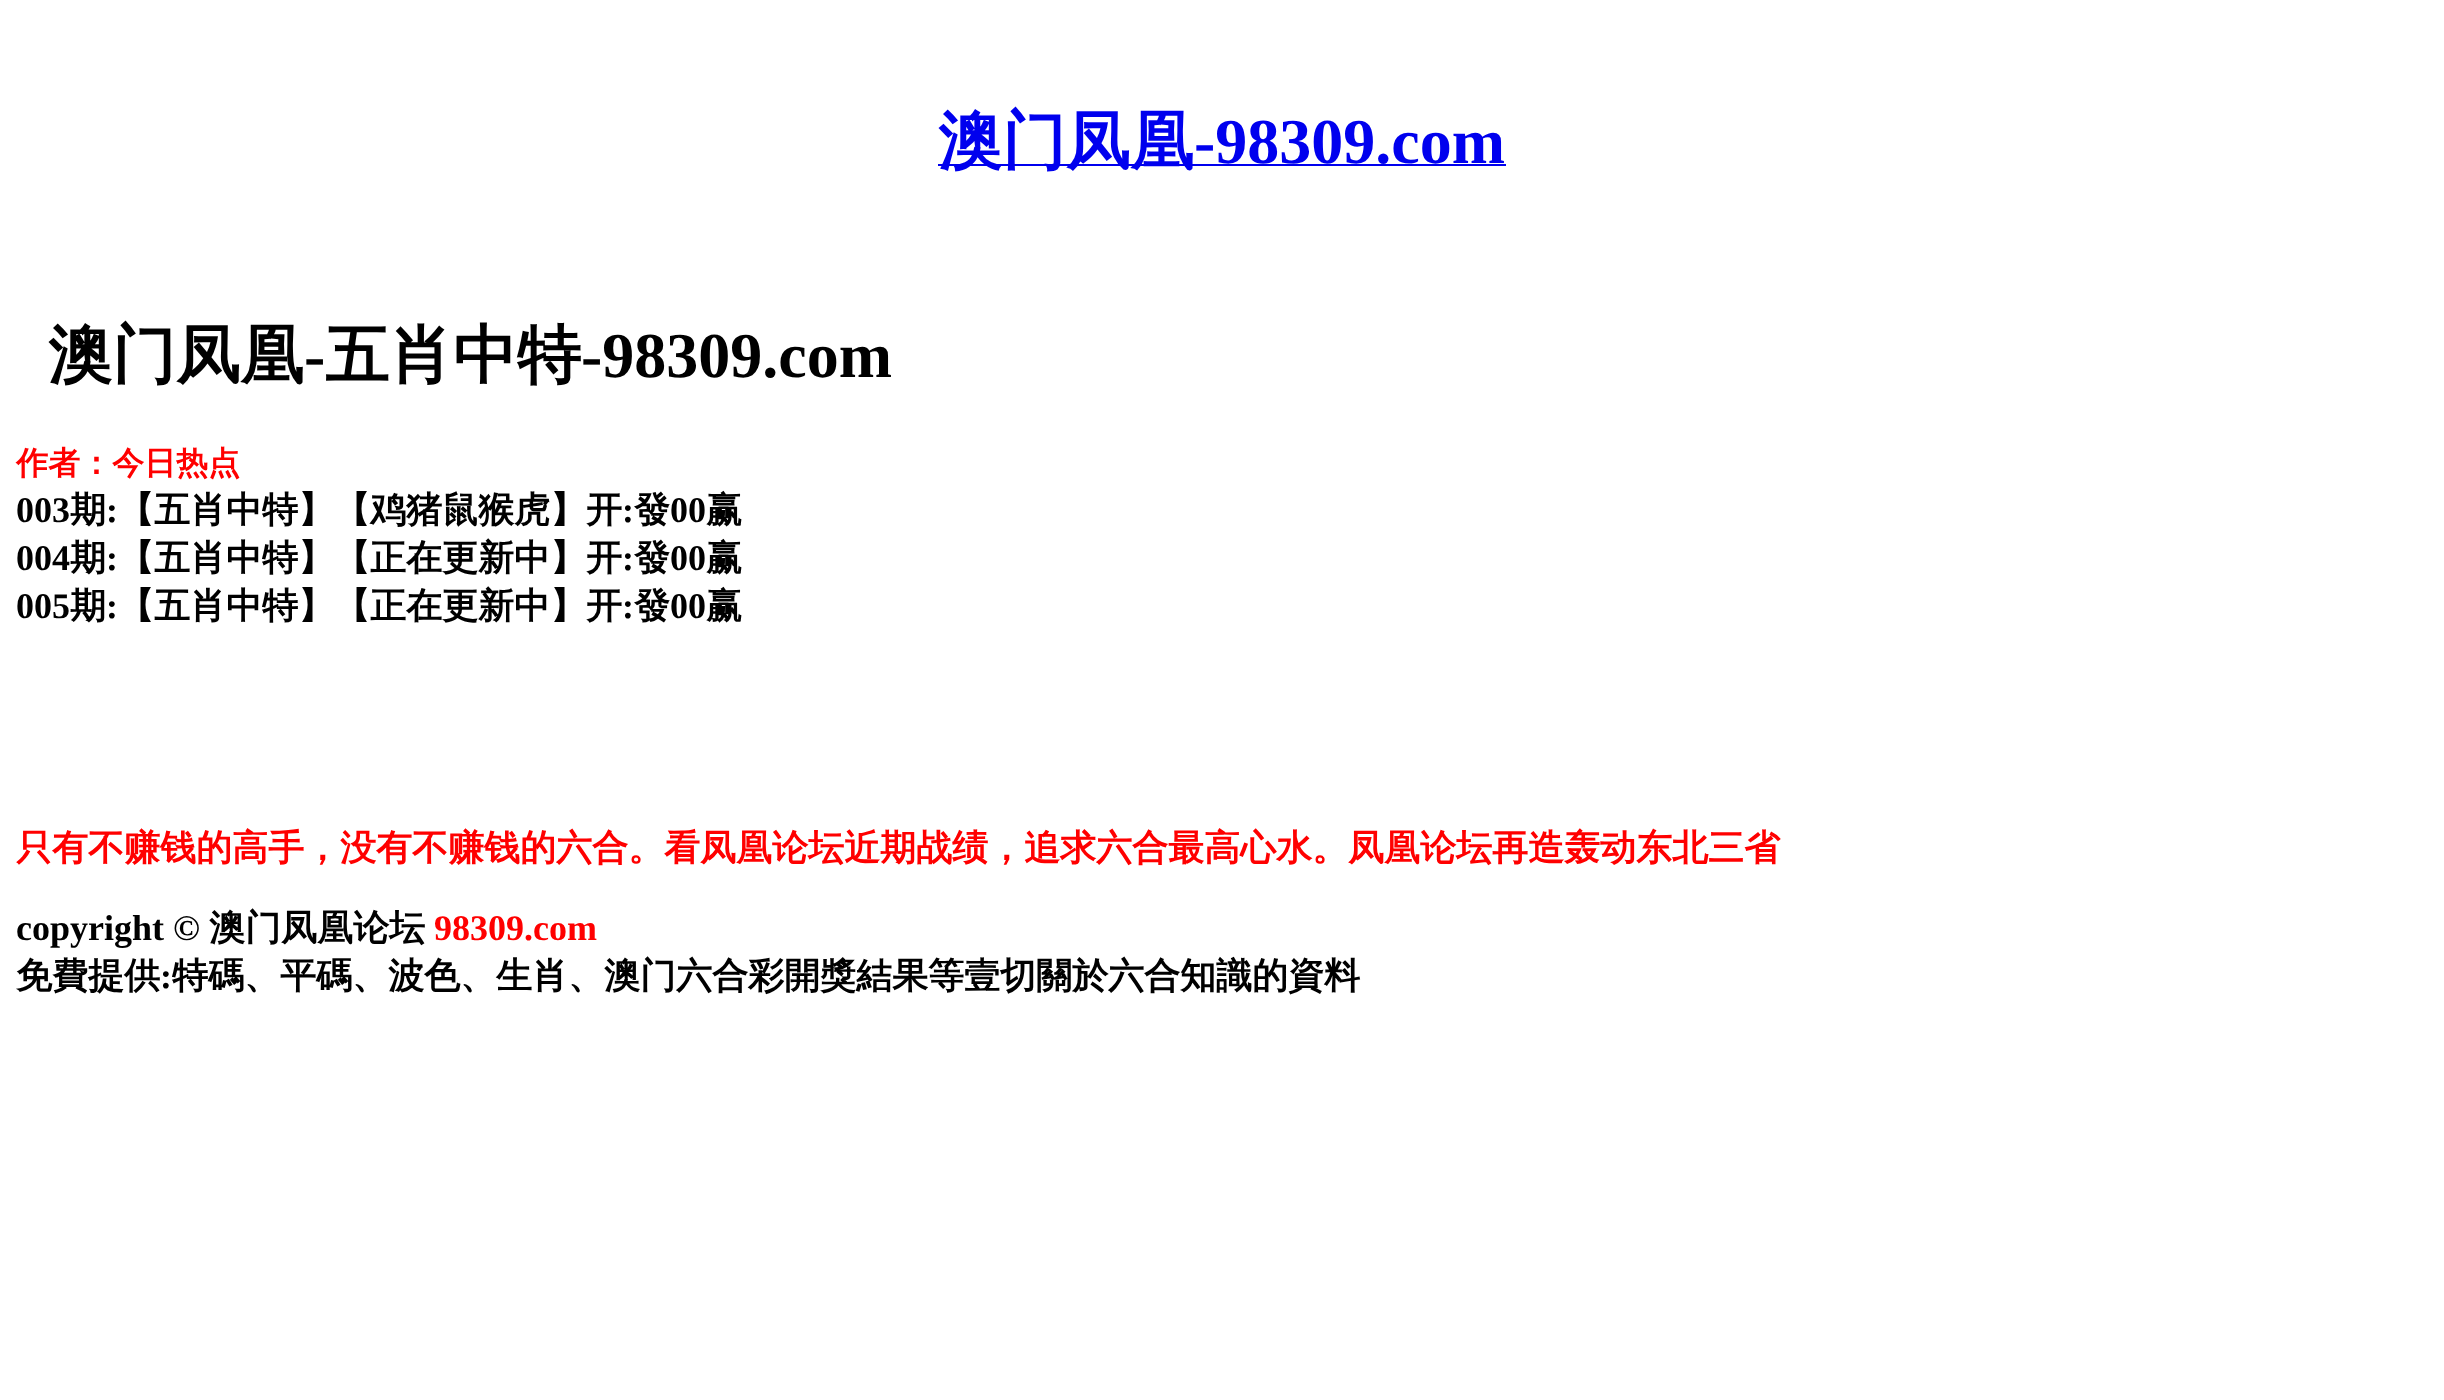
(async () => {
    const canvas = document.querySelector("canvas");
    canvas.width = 2444;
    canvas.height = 1400;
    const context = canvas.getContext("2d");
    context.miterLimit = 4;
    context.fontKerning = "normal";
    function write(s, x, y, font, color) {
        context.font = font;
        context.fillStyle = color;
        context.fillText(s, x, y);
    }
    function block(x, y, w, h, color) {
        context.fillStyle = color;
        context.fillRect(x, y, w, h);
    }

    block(0, 0, 2444, 1400, "rgb(255, 255, 255)");
    block(938, 164, 568, 2, "rgb(0, 0, 238)");
    write("澳门凤凰", 938, 163, "bold 64px WenQuanYi Zen Hei", "rgb(0, 0, 238)");
    write("-98309.com", 1194, 163, "bold 64px Liberation Serif", "rgb(0, 0, 238)");
    write("澳门凤凰", 48, 377, "bold 64px WenQuanYi Zen Hei", "rgb(0, 0, 0)");
    write("-", 304, 377, "bold 64px Liberation Serif", "rgb(0, 0, 0)");
    write("五肖中特", 325, 377, "bold 64px WenQuanYi Zen Hei", "rgb(0, 0, 0)");
    write("-98309.com", 581, 377, "bold 64px Liberation Serif", "rgb(0, 0, 0)");
    write("作者：今日热点", 16, 474, "bold 32px WenQuanYi Zen Hei", "rgb(255, 0, 0)");
    write("003", 16, 522, "bold 36px Liberation Serif", "rgb(0, 0, 0)");
    write("期", 70, 522, "bold 36px WenQuanYi Zen Hei", "rgb(0, 0, 0)");
    write(":", 106, 522, "bold 36px Liberation Serif", "rgb(0, 0, 0)");
    write("【五肖中特】【鸡猪鼠猴虎】开", 118, 522, "bold 36px WenQuanYi Zen Hei", "rgb(0, 0, 0)");
    write(":", 622, 522, "bold 36px Liberation Serif", "rgb(0, 0, 0)");
    write("發", 634, 522, "bold 36px WenQuanYi Zen Hei", "rgb(0, 0, 0)");
    write("00", 670, 522, "bold 36px Liberation Serif", "rgb(0, 0, 0)");
    write("赢", 706, 522, "bold 36px WenQuanYi Zen Hei", "rgb(0, 0, 0)");
    write("004", 16, 570, "bold 36px Liberation Serif", "rgb(0, 0, 0)");
    write("期", 70, 570, "bold 36px WenQuanYi Zen Hei", "rgb(0, 0, 0)");
    write(":", 106, 570, "bold 36px Liberation Serif", "rgb(0, 0, 0)");
    write("【五肖中特】【正在更新中】开", 118, 570, "bold 36px WenQuanYi Zen Hei", "rgb(0, 0, 0)");
    write(":", 622, 570, "bold 36px Liberation Serif", "rgb(0, 0, 0)");
    write("發", 634, 570, "bold 36px WenQuanYi Zen Hei", "rgb(0, 0, 0)");
    write("00", 670, 570, "bold 36px Liberation Serif", "rgb(0, 0, 0)");
    write("赢", 706, 570, "bold 36px WenQuanYi Zen Hei", "rgb(0, 0, 0)");
    write("005", 16, 618, "bold 36px Liberation Serif", "rgb(0, 0, 0)");
    write("期", 70, 618, "bold 36px WenQuanYi Zen Hei", "rgb(0, 0, 0)");
    write(":", 106, 618, "bold 36px Liberation Serif", "rgb(0, 0, 0)");
    write("【五肖中特】【正在更新中】开", 118, 618, "bold 36px WenQuanYi Zen Hei", "rgb(0, 0, 0)");
    write(":", 622, 618, "bold 36px Liberation Serif", "rgb(0, 0, 0)");
    write("發", 634, 618, "bold 36px WenQuanYi Zen Hei", "rgb(0, 0, 0)");
    write("00", 670, 618, "bold 36px Liberation Serif", "rgb(0, 0, 0)");
    write("赢", 706, 618, "bold 36px WenQuanYi Zen Hei", "rgb(0, 0, 0)");
    write("只有不赚钱的高手，没有不赚钱的六合。看凤凰论坛近期战绩，追求六合最高心水。凤凰论坛再造轰动东北三省", 16, 860, "bold 36px WenQuanYi Zen Hei", "rgb(255, 0, 0)");
    write("copyright ©", 16, 940, "bold 36px Liberation Serif", "rgb(0, 0, 0)");
    write("澳门凤凰论坛", 209, 940, "bold 36px WenQuanYi Zen Hei", "rgb(0, 0, 0)");
    write("98309.com", 434, 940, "bold 36px Liberation Serif", "rgb(255, 0, 0)");
    write("免費提供", 16, 988, "bold 36px WenQuanYi Zen Hei", "rgb(0, 0, 0)");
    write(":", 160, 988, "bold 36px Liberation Serif", "rgb(0, 0, 0)");
    write("特碼、平碼、波色、生肖、澳门六合彩開獎結果等壹切關於六合知識的資料", 172, 988, "bold 36px WenQuanYi Zen Hei", "rgb(0, 0, 0)");
})();
